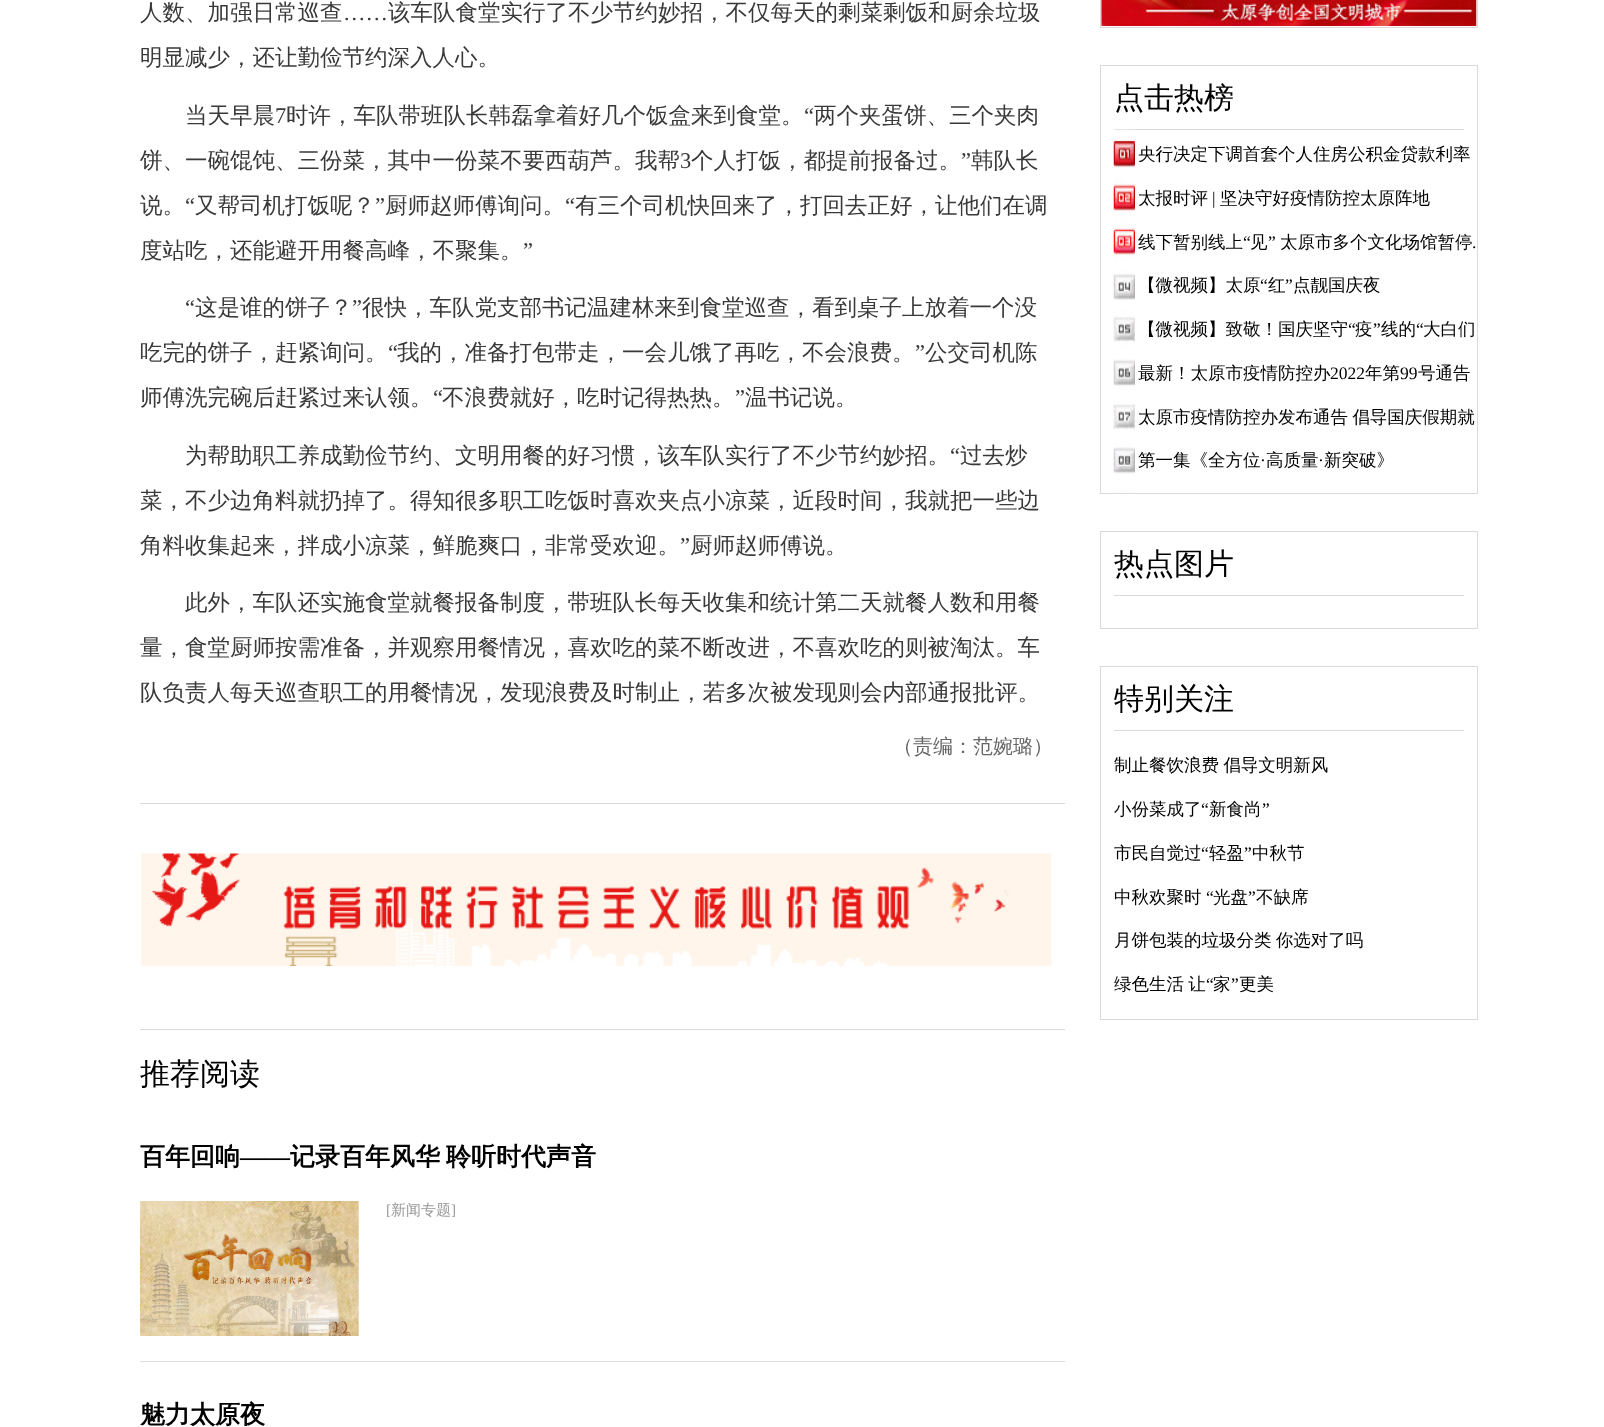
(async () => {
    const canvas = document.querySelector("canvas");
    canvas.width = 1604;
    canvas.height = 1427;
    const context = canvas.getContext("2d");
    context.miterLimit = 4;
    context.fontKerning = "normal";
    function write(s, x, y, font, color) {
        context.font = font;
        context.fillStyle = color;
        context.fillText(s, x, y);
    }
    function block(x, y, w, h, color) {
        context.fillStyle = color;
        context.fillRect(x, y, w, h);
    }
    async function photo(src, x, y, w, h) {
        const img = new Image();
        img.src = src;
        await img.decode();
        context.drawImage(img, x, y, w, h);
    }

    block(0, 0, 1604, 1427, "rgb(255, 255, 255)");
    write("人数、加强日常巡查", 140, 20, "500 22.5px WenQuanYi Zen Hei", "rgb(57, 57, 57)");
    write("……", 343, 20, "22.5px Liberation Serif", "rgb(57, 57, 57)");
    write("该车队食堂实行了不少节约妙招，不仅每天的剩菜剩饭和厨余垃圾", 388, 20, "500 22.5px WenQuanYi Zen Hei", "rgb(57, 57, 57)");
    write("明显减少，还让勤俭节约深入人心。", 140, 65, "500 22.5px WenQuanYi Zen Hei", "rgb(57, 57, 57)");
    write("当天早晨", 185, 123, "500 22.5px WenQuanYi Zen Hei", "rgb(57, 57, 57)");
    write("7", 275, 123, "22.5px Liberation Serif", "rgb(57, 57, 57)");
    write("时许，车队带班队长韩磊拿着好几个饭盒来到食堂。", 286, 123, "500 22.5px WenQuanYi Zen Hei", "rgb(57, 57, 57)");
    write("“", 804, 123, "22.5px Liberation Serif", "rgb(57, 57, 57)");
    write("两个夹蛋饼、三个夹肉", 814, 123, "500 22.5px WenQuanYi Zen Hei", "rgb(57, 57, 57)");
    write("饼、一碗馄饨、三份菜，其中一份菜不要西葫芦。我帮", 140, 168, "500 22.5px WenQuanYi Zen Hei", "rgb(57, 57, 57)");
    write("3", 680, 168, "22.5px Liberation Serif", "rgb(57, 57, 57)");
    write("个人打饭，都提前报备过。", 691, 168, "500 22.5px WenQuanYi Zen Hei", "rgb(57, 57, 57)");
    write("”", 961, 168, "22.5px Liberation Serif", "rgb(57, 57, 57)");
    write("韩队长", 971, 168, "500 22.5px WenQuanYi Zen Hei", "rgb(57, 57, 57)");
    write("说。", 140, 213, "500 22.5px WenQuanYi Zen Hei", "rgb(57, 57, 57)");
    write("“", 185, 213, "22.5px Liberation Serif", "rgb(57, 57, 57)");
    write("又帮司机打饭呢？", 195, 213, "500 22.5px WenQuanYi Zen Hei", "rgb(57, 57, 57)");
    write("”", 375, 213, "22.5px Liberation Serif", "rgb(57, 57, 57)");
    write("厨师赵师傅询问。", 385, 213, "500 22.5px WenQuanYi Zen Hei", "rgb(57, 57, 57)");
    write("“", 565, 213, "22.5px Liberation Serif", "rgb(57, 57, 57)");
    write("有三个司机快回来了，打回去正好，让他们在调", 575, 213, "500 22.5px WenQuanYi Zen Hei", "rgb(57, 57, 57)");
    write("度站吃，还能避开用餐高峰，不聚集。", 140, 258, "500 22.5px WenQuanYi Zen Hei", "rgb(57, 57, 57)");
    write("”", 523, 258, "22.5px Liberation Serif", "rgb(57, 57, 57)");
    write("“", 185, 315, "22.5px Liberation Serif", "rgb(57, 57, 57)");
    write("这是谁的饼子？", 195, 315, "500 22.5px WenQuanYi Zen Hei", "rgb(57, 57, 57)");
    write("”", 352, 315, "22.5px Liberation Serif", "rgb(57, 57, 57)");
    write("很快，车队党支部书记温建林来到食堂巡查，看到桌子上放着一个没", 362, 315, "500 22.5px WenQuanYi Zen Hei", "rgb(57, 57, 57)");
    write("吃完的饼子，赶紧询问。", 140, 360, "500 22.5px WenQuanYi Zen Hei", "rgb(57, 57, 57)");
    write("“", 388, 360, "22.5px Liberation Serif", "rgb(57, 57, 57)");
    write("我的，准备打包带走，一会儿饿了再吃，不会浪费。", 397, 360, "500 22.5px WenQuanYi Zen Hei", "rgb(57, 57, 57)");
    write("”", 915, 360, "22.5px Liberation Serif", "rgb(57, 57, 57)");
    write("公交司机陈", 925, 360, "500 22.5px WenQuanYi Zen Hei", "rgb(57, 57, 57)");
    write("师傅洗完碗后赶紧过来认领。", 140, 405, "500 22.5px WenQuanYi Zen Hei", "rgb(57, 57, 57)");
    write("“", 433, 405, "22.5px Liberation Serif", "rgb(57, 57, 57)");
    write("不浪费就好，吃时记得热热。", 442, 405, "500 22.5px WenQuanYi Zen Hei", "rgb(57, 57, 57)");
    write("”", 735, 405, "22.5px Liberation Serif", "rgb(57, 57, 57)");
    write("温书记说。", 745, 405, "500 22.5px WenQuanYi Zen Hei", "rgb(57, 57, 57)");
    write("为帮助职工养成勤俭节约、文明用餐的好习惯，该车队实行了不少节约妙招。", 185, 463, "500 22.5px WenQuanYi Zen Hei", "rgb(57, 57, 57)");
    write("“", 950, 463, "22.5px Liberation Serif", "rgb(57, 57, 57)");
    write("过去炒", 960, 463, "500 22.5px WenQuanYi Zen Hei", "rgb(57, 57, 57)");
    write("菜，不少边角料就扔掉了。得知很多职工吃饭时喜欢夹点小凉菜，近段时间，我就把一些边", 140, 508, "500 22.5px WenQuanYi Zen Hei", "rgb(57, 57, 57)");
    write("角料收集起来，拌成小凉菜，鲜脆爽口，非常受欢迎。", 140, 553, "500 22.5px WenQuanYi Zen Hei", "rgb(57, 57, 57)");
    write("”", 680, 553, "22.5px Liberation Serif", "rgb(57, 57, 57)");
    write("厨师赵师傅说。", 690, 553, "500 22.5px WenQuanYi Zen Hei", "rgb(57, 57, 57)");
    write("此外，车队还实施食堂就餐报备制度，带班队长每天收集和统计第二天就餐人数和用餐", 185, 610, "500 22.5px WenQuanYi Zen Hei", "rgb(57, 57, 57)");
    write("量，食堂厨师按需准备，并观察用餐情况，喜欢吃的菜不断改进，不喜欢吃的则被淘汰。车", 140, 655, "500 22.5px WenQuanYi Zen Hei", "rgb(57, 57, 57)");
    write("队负责人每天巡查职工的用餐情况，发现浪费及时制止，若多次被发现则会内部通报批评。", 140, 700, "500 22.5px WenQuanYi Zen Hei", "rgb(57, 57, 57)");
    write("（责编：范婉璐）", 893, 753, "500 20px WenQuanYi Zen Hei", "rgb(102, 102, 102)");
    block(140, 803, 925, 1, "rgb(217, 217, 217)");
    await photo("media/1.png", 141, 853, 911, 113);
    block(140, 1029, 925, 1, "rgb(217, 217, 217)");
    write("推荐阅读", 140, 1084, "500 30px WenQuanYi Zen Hei", "rgb(0, 0, 0)");
    block(140, 1361, 925, 1, "rgb(221, 221, 221)");
    write("百年回响", 140, 1165, "bold 25px WenQuanYi Zen Hei", "rgb(0, 0, 0)");
    write("——", 240, 1165, "bold 25px Liberation Serif", "rgb(0, 0, 0)");
    write("记录百年风华", 290, 1165, "bold 25px WenQuanYi Zen Hei", "rgb(0, 0, 0)");
    write("聆听时代声音", 446, 1165, "bold 25px WenQuanYi Zen Hei", "rgb(0, 0, 0)");
    await photo("media/2.png", 140, 1201, 219, 135);
    write("[", 386, 1215, "15px Liberation Serif", "rgb(153, 153, 153)");
    write("新闻专题", 391, 1215, "500 15px WenQuanYi Zen Hei", "rgb(153, 153, 153)");
    write("]", 451, 1215, "15px Liberation Serif", "rgb(153, 153, 153)");
    write("魅力太原夜", 140, 1423, "bold 25px WenQuanYi Zen Hei", "rgb(0, 0, 0)");
    context.strokeStyle = "rgb(222, 216, 222)";
    context.strokeRect(1100.5, -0.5, 377, 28);
    block(1101, 0, 1, 26, "rgb(247, 243, 247)");
    await photo("media/3.png", 1101, 0, 376, 26);
    context.strokeRect(1100.5, 65.5, 377, 428);
    block(1114, 129, 350, 1, "rgb(222, 216, 222)");
    write("点击热榜", 1114, 108, "500 30px WenQuanYi Zen Hei", "rgb(0, 0, 0)");
    await photo("media/4.png", 1113, 129, 22, 363);
    write("央行决定下调首套个人住房公积金贷款利率", 1138, 160, "500 17.5px WenQuanYi Zen Hei", "rgb(0, 0, 0)");
    write("太报时评", 1138, 204, "500 17.5px WenQuanYi Zen Hei", "rgb(0, 0, 0)");
    write("|", 1212, 204, "17.5px Liberation Serif", "rgb(0, 0, 0)");
    write("坚决守好疫情防控太原阵地", 1220, 204, "500 17.5px WenQuanYi Zen Hei", "rgb(0, 0, 0)");
    write("线下暂别线上", 1138, 248, "500 17.5px WenQuanYi Zen Hei", "rgb(0, 0, 0)");
    write("“", 1243, 248, "17.5px Liberation Serif", "rgb(0, 0, 0)");
    write("见", 1250, 248, "500 17.5px WenQuanYi Zen Hei", "rgb(0, 0, 0)");
    write("”", 1268, 248, "17.5px Liberation Serif", "rgb(0, 0, 0)");
    write("太原市多个文化场馆暂停", 1280, 248, "500 17.5px WenQuanYi Zen Hei", "rgb(0, 0, 0)");
    write(".", 1472, 248, "17.5px Liberation Serif", "rgb(0, 0, 0)");
    write("【微视频】太原", 1138, 291, "500 17.5px WenQuanYi Zen Hei", "rgb(0, 0, 0)");
    write("“", 1260, 291, "17.5px Liberation Serif", "rgb(0, 0, 0)");
    write("红", 1268, 291, "500 17.5px WenQuanYi Zen Hei", "rgb(0, 0, 0)");
    write("”", 1285, 291, "17.5px Liberation Serif", "rgb(0, 0, 0)");
    write("点靓国庆夜", 1293, 291, "500 17.5px WenQuanYi Zen Hei", "rgb(0, 0, 0)");
    write("【微视频】致敬！国庆坚守", 1138, 335, "500 17.5px WenQuanYi Zen Hei", "rgb(0, 0, 0)");
    write("“", 1348, 335, "17.5px Liberation Serif", "rgb(0, 0, 0)");
    write("疫", 1355, 335, "500 17.5px WenQuanYi Zen Hei", "rgb(0, 0, 0)");
    write("”", 1373, 335, "17.5px Liberation Serif", "rgb(0, 0, 0)");
    write("线的", 1381, 335, "500 17.5px WenQuanYi Zen Hei", "rgb(0, 0, 0)");
    write("“", 1416, 335, "17.5px Liberation Serif", "rgb(0, 0, 0)");
    write("大白们", 1423, 335, "500 17.5px WenQuanYi Zen Hei", "rgb(0, 0, 0)");
    write("最新！太原市疫情防控办", 1138, 379, "500 17.5px WenQuanYi Zen Hei", "rgb(0, 0, 0)");
    write("2022", 1330, 379, "17.5px Liberation Serif", "rgb(0, 0, 0)");
    write("年第", 1365, 379, "500 17.5px WenQuanYi Zen Hei", "rgb(0, 0, 0)");
    write("99", 1400, 379, "17.5px Liberation Serif", "rgb(0, 0, 0)");
    write("号通告", 1418, 379, "500 17.5px WenQuanYi Zen Hei", "rgb(0, 0, 0)");
    context.wordSpacing = "-1px";
    write("太原市疫情防控办发布通告 倡导国庆假期就", 1138, 423, "500 17.5px WenQuanYi Zen Hei", "rgb(0, 0, 0)");
    context.wordSpacing = "0px";
    write("第一集《全方位", 1138, 466, "500 17.5px WenQuanYi Zen Hei", "rgb(0, 0, 0)");
    write("·", 1260, 466, "17.5px Liberation Serif", "rgb(0, 0, 0)");
    write("高质量", 1266, 466, "500 17.5px WenQuanYi Zen Hei", "rgb(0, 0, 0)");
    write("·", 1318, 466, "17.5px Liberation Serif", "rgb(0, 0, 0)");
    write("新突破》", 1324, 466, "500 17.5px WenQuanYi Zen Hei", "rgb(0, 0, 0)");
    context.strokeRect(1100.5, 531.5, 377, 97);
    block(1114, 595, 350, 1, "rgb(222, 216, 222)");
    write("热点图片", 1114, 574, "500 30px WenQuanYi Zen Hei", "rgb(0, 0, 0)");
    context.strokeRect(1100.5, 666.5, 377, 353);
    block(1114, 730, 350, 1, "rgb(222, 216, 222)");
    write("特别关注", 1114, 709, "500 30px WenQuanYi Zen Hei", "rgb(0, 0, 0)");
    context.wordSpacing = "-1px";
    write("制止餐饮浪费 倡导文明新风", 1114, 771, "500 17.5px WenQuanYi Zen Hei", "rgb(0, 0, 0)");
    context.wordSpacing = "0px";
    write("小份菜成了", 1114, 815, "500 17.5px WenQuanYi Zen Hei", "rgb(0, 0, 0)");
    write("“", 1201, 815, "17.5px Liberation Serif", "rgb(0, 0, 0)");
    write("新食尚", 1209, 815, "500 17.5px WenQuanYi Zen Hei", "rgb(0, 0, 0)");
    write("”", 1262, 815, "17.5px Liberation Serif", "rgb(0, 0, 0)");
    write("市民自觉过", 1114, 859, "500 17.5px WenQuanYi Zen Hei", "rgb(0, 0, 0)");
    write("“", 1201, 859, "17.5px Liberation Serif", "rgb(0, 0, 0)");
    write("轻盈", 1209, 859, "500 17.5px WenQuanYi Zen Hei", "rgb(0, 0, 0)");
    write("”", 1244, 859, "17.5px Liberation Serif", "rgb(0, 0, 0)");
    write("中秋节", 1252, 859, "500 17.5px WenQuanYi Zen Hei", "rgb(0, 0, 0)");
    write("中秋欢聚时", 1114, 903, "500 17.5px WenQuanYi Zen Hei", "rgb(0, 0, 0)");
    write("“", 1206, 903, "17.5px Liberation Serif", "rgb(0, 0, 0)");
    write("光盘", 1213, 903, "500 17.5px WenQuanYi Zen Hei", "rgb(0, 0, 0)");
    write("”", 1248, 903, "17.5px Liberation Serif", "rgb(0, 0, 0)");
    write("不缺席", 1256, 903, "500 17.5px WenQuanYi Zen Hei", "rgb(0, 0, 0)");
    context.wordSpacing = "-1px";
    write("月饼包装的垃圾分类 你选对了吗", 1114, 946, "500 17.5px WenQuanYi Zen Hei", "rgb(0, 0, 0)");
    write("绿色生活 让", 1114, 990, "500 17.5px WenQuanYi Zen Hei", "rgb(0, 0, 0)");
    context.wordSpacing = "0px";
    write("“", 1206, 990, "17.5px Liberation Serif", "rgb(0, 0, 0)");
    write("家", 1213, 990, "500 17.5px WenQuanYi Zen Hei", "rgb(0, 0, 0)");
    write("”", 1231, 990, "17.5px Liberation Serif", "rgb(0, 0, 0)");
    write("更美", 1239, 990, "500 17.5px WenQuanYi Zen Hei", "rgb(0, 0, 0)");
})();
